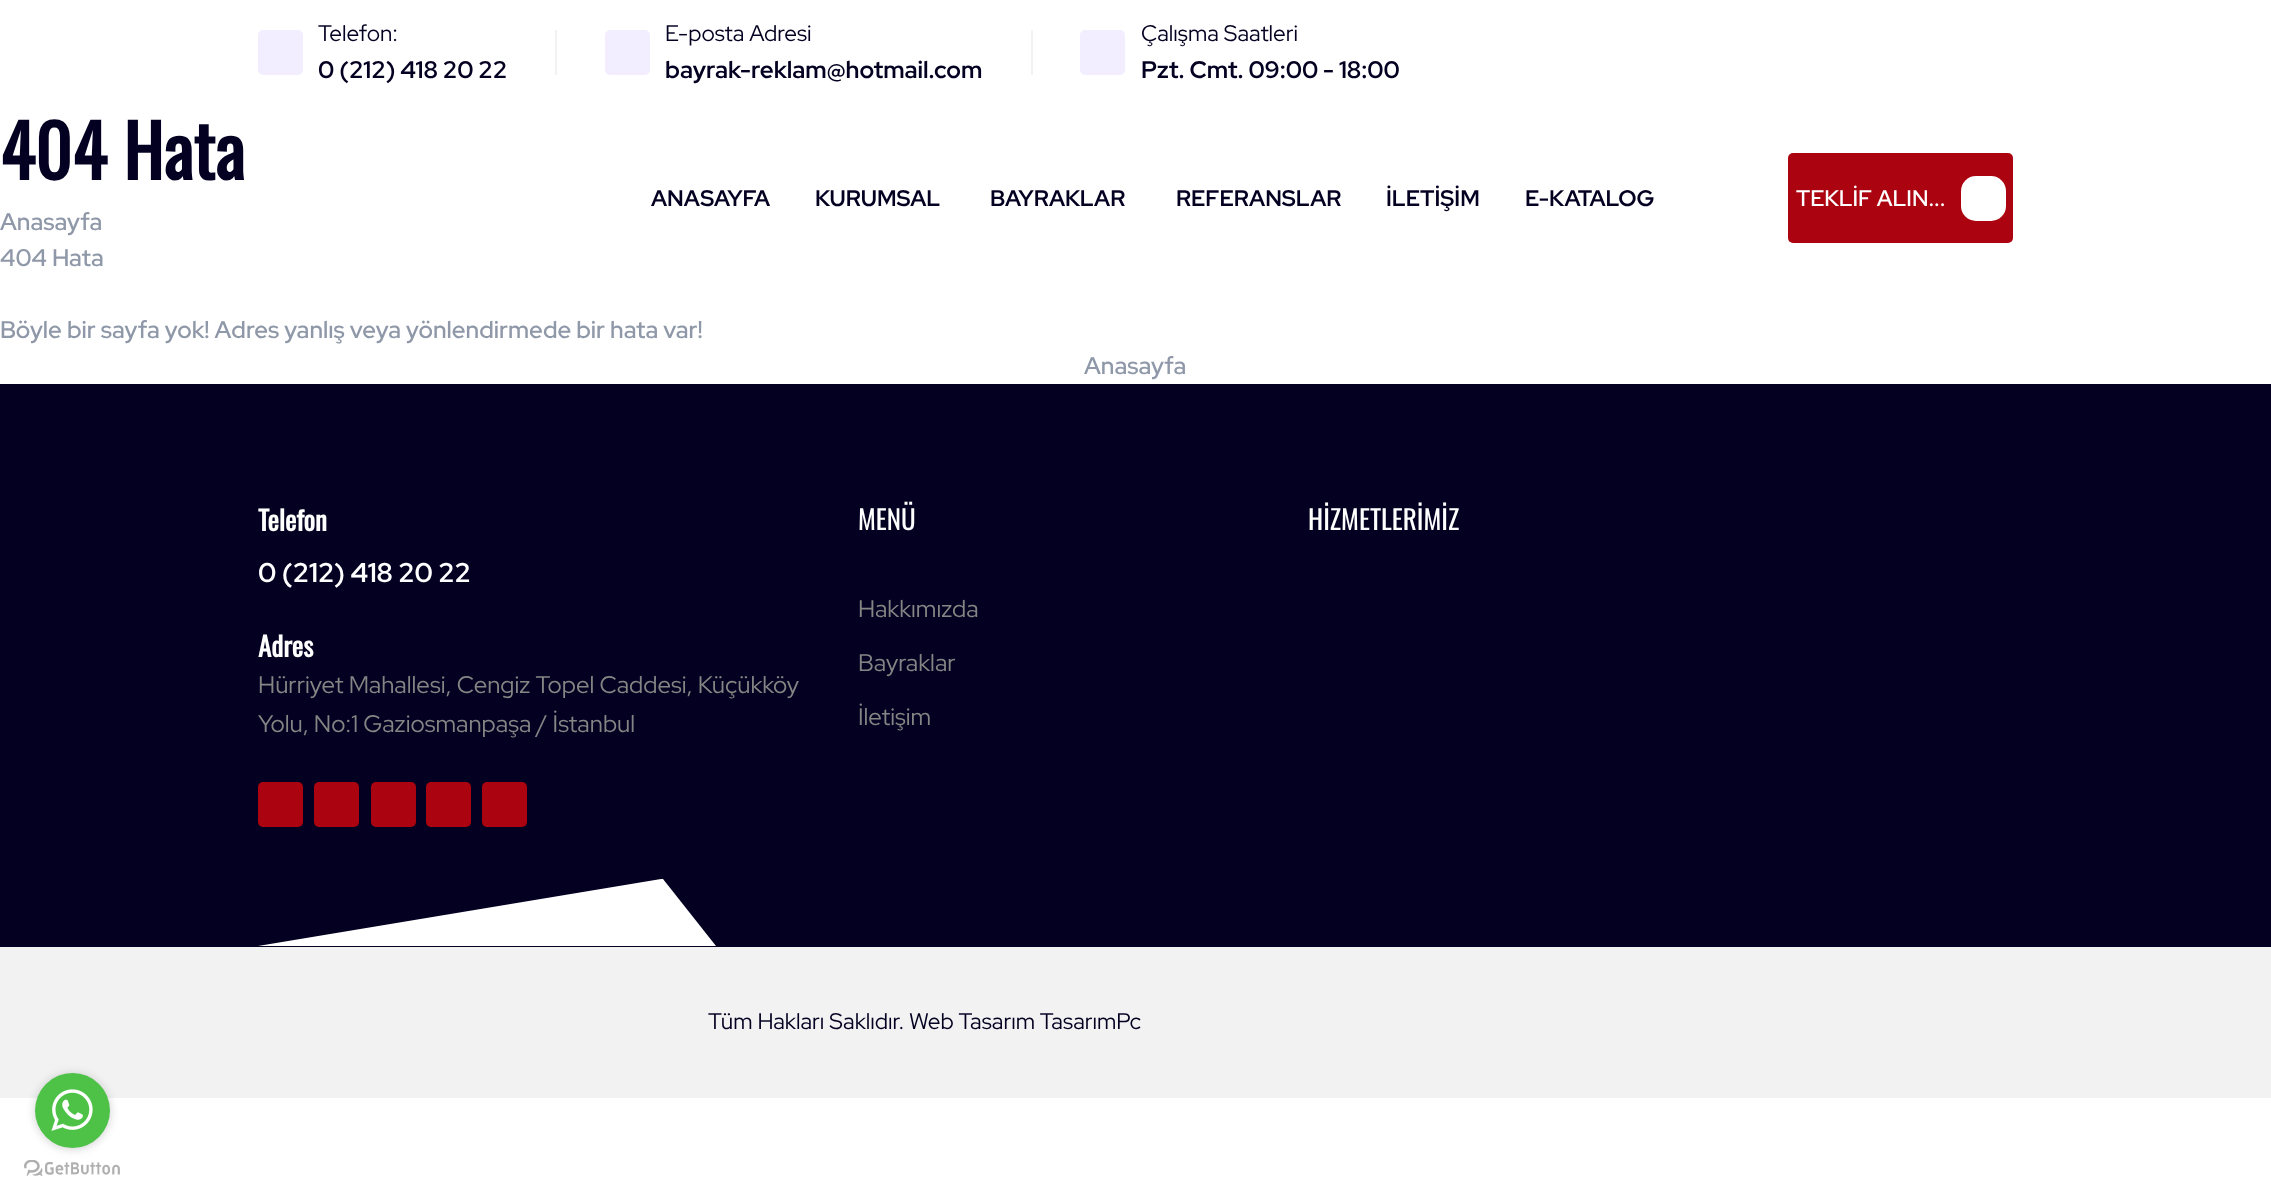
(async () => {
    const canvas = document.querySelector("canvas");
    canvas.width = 2271;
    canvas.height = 1196;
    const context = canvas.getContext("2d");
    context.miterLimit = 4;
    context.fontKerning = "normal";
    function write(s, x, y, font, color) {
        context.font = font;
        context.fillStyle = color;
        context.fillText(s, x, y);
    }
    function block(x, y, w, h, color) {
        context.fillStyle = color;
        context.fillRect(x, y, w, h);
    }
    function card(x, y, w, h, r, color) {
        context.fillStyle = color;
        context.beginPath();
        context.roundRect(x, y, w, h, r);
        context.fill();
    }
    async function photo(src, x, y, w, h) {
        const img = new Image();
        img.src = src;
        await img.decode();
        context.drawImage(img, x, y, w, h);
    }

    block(0, 0, 2271, 1196, "rgb(255, 255, 255)");
    write("404 Hata", 0, 180, "bold 72px Oswald", "rgb(4, 0, 33)");
    write("Anasayfa", 0, 230, "600 24px Red Hat Display", "rgb(143, 152, 168)");
    write("404 Hata", 0, 266, "600 24px Red Hat Display", "rgb(143, 152, 168)");
    card(258, 30, 45, 45, 5, "rgb(242, 238, 255)");
    write("Telefon:", 318, 41, "22.5px Red Hat Display", "rgb(4, 0, 33)");
    write("0 (212) 418 20 22", 318, 78, "bold 24px Red Hat Display", "rgb(4, 0, 33)");
    block(555, 30, 2, 45, "rgb(242, 242, 242)");
    card(605, 30, 45, 45, 5, "rgb(242, 238, 255)");
    write("E-posta Adresi", 665, 41, "22.5px Red Hat Display", "rgb(4, 0, 33)");
    write("bayrak-reklam@hotmail.com", 665, 78, "bold 24px Red Hat Display", "rgb(4, 0, 33)");
    block(1031, 30, 2, 45, "rgb(242, 242, 242)");
    card(1080, 30, 45, 45, 5, "rgb(242, 238, 255)");
    write("Çalışma Saatleri", 1141, 41, "22.5px Red Hat Display", "rgb(4, 0, 33)");
    write("Pzt. Cmt. 09:00 - 18:00", 1141, 78, "bold 24px Red Hat Display", "rgb(4, 0, 33)");
    write("ANASAYFA", 651, 206, "bold 22.5px Red Hat Display", "rgb(4, 0, 33)");
    write("KURUMSAL", 815, 206, "bold 22.5px Red Hat Display", "rgb(4, 0, 33)");
    write("BAYRAKLAR", 990, 206, "bold 22.5px Red Hat Display", "rgb(4, 0, 33)");
    write("REFERANSLAR", 1176, 206, "bold 22.5px Red Hat Display", "rgb(4, 0, 33)");
    write("İLETİŞİM", 1386, 206, "bold 22.5px Red Hat Display", "rgb(4, 0, 33)");
    write("E-KATALOG", 1525, 206, "bold 22.5px Red Hat Display", "rgb(4, 0, 33)");
    card(1788, 153, 225, 90, 5, "rgb(171, 3, 15)");
    write("TEKLİF ALIN...", 1796, 206, "600 22.5px Red Hat Display", "rgb(255, 255, 255)");
    card(1961, 176, 45, 45, 15, "rgb(255, 255, 255)");
    write("Böyle bir sayfa yok! Adres yanlış veya yönlendirmede bir hata var!", 0, 338, "600 24px Red Hat Display", "rgb(143, 152, 168)");
    write("Anasayfa", 1084, 374, "600 24px Red Hat Display", "rgb(143, 152, 168)");
    block(0, 384, 2271, 563, "rgb(4, 0, 33)");
    write("Telefon", 258, 531, "bold 27px Oswald", "rgb(255, 255, 255)");
    write("0 (212) 418 20 22", 258, 582, "bold 27px Red Hat Display", "rgb(255, 255, 255)");
    write("Adres", 258, 657, "bold 27px Oswald", "rgb(255, 255, 255)");
    write("Hürriyet Mahallesi, Cengiz Topel Caddesi, Küçükköy", 258, 693, "24px Red Hat Display", "rgb(133, 133, 133)");
    write("Yolu, No:1 Gaziosmanpaşa / İstanbul", 258, 732, "24px Red Hat Display", "rgb(133, 133, 133)");
    card(258, 782, 45, 45, 5, "rgb(171, 3, 15)");
    card(314, 782, 45, 45, 5, "rgb(171, 3, 15)");
    card(371, 782, 45, 45, 5, "rgb(171, 3, 15)");
    card(426, 782, 45, 45, 5, "rgb(171, 3, 15)");
    card(482, 782, 45, 45, 5, "rgb(171, 3, 15)");
    write("MENÜ", 858, 530, "27px Oswald", "rgb(255, 255, 255)");
    write("Hakkımızda", 858, 617, "24px Red Hat Display", "rgb(133, 133, 133)");
    write("Bayraklar", 858, 671, "24px Red Hat Display", "rgb(133, 133, 133)");
    write("İletişim", 858, 725, "24px Red Hat Display", "rgb(133, 133, 133)");
    write("HİZMETLERİMİZ", 1308, 530, "27px Oswald", "rgb(255, 255, 255)");
    block(0, 947, 2271, 151, "rgb(242, 242, 242)");
    context.fillStyle = "rgb(255, 255, 255)";
    context.beginPath();
    context.moveTo(663, 946);
    context.lineTo(663, 879);
    context.lineTo(661, 879);
    context.lineTo(258, 946);
    context.closePath();
    context.fill();
    context.beginPath();
    context.moveTo(663, 879);
    context.lineTo(663, 946);
    context.lineTo(716, 946);
    context.closePath();
    context.fill();
    write("Tüm Hakları Saklıdır. Web Tasarım TasarımPc", 708, 1029, "22.5px Red Hat Display", "rgb(4, 0, 33)");
    await photo("media/2.png", 24, 1160, 96, 16);
    context.fillStyle = "rgba(136, 136, 136, 0.4)";
    context.filter = "blur(5px)";
    context.beginPath();
    context.roundRect(35, 1074, 75, 75, 37.5);
    context.fill();
    context.filter = "none";
    context.fillStyle = "rgb(77, 194, 71)";
    context.beginPath();
    context.arc(72.5, 1110.5, 37.5, 0, Math.PI * 2);
    context.fill();
    await photo("media/1.png", 51, 1089, 42, 42);
})();
